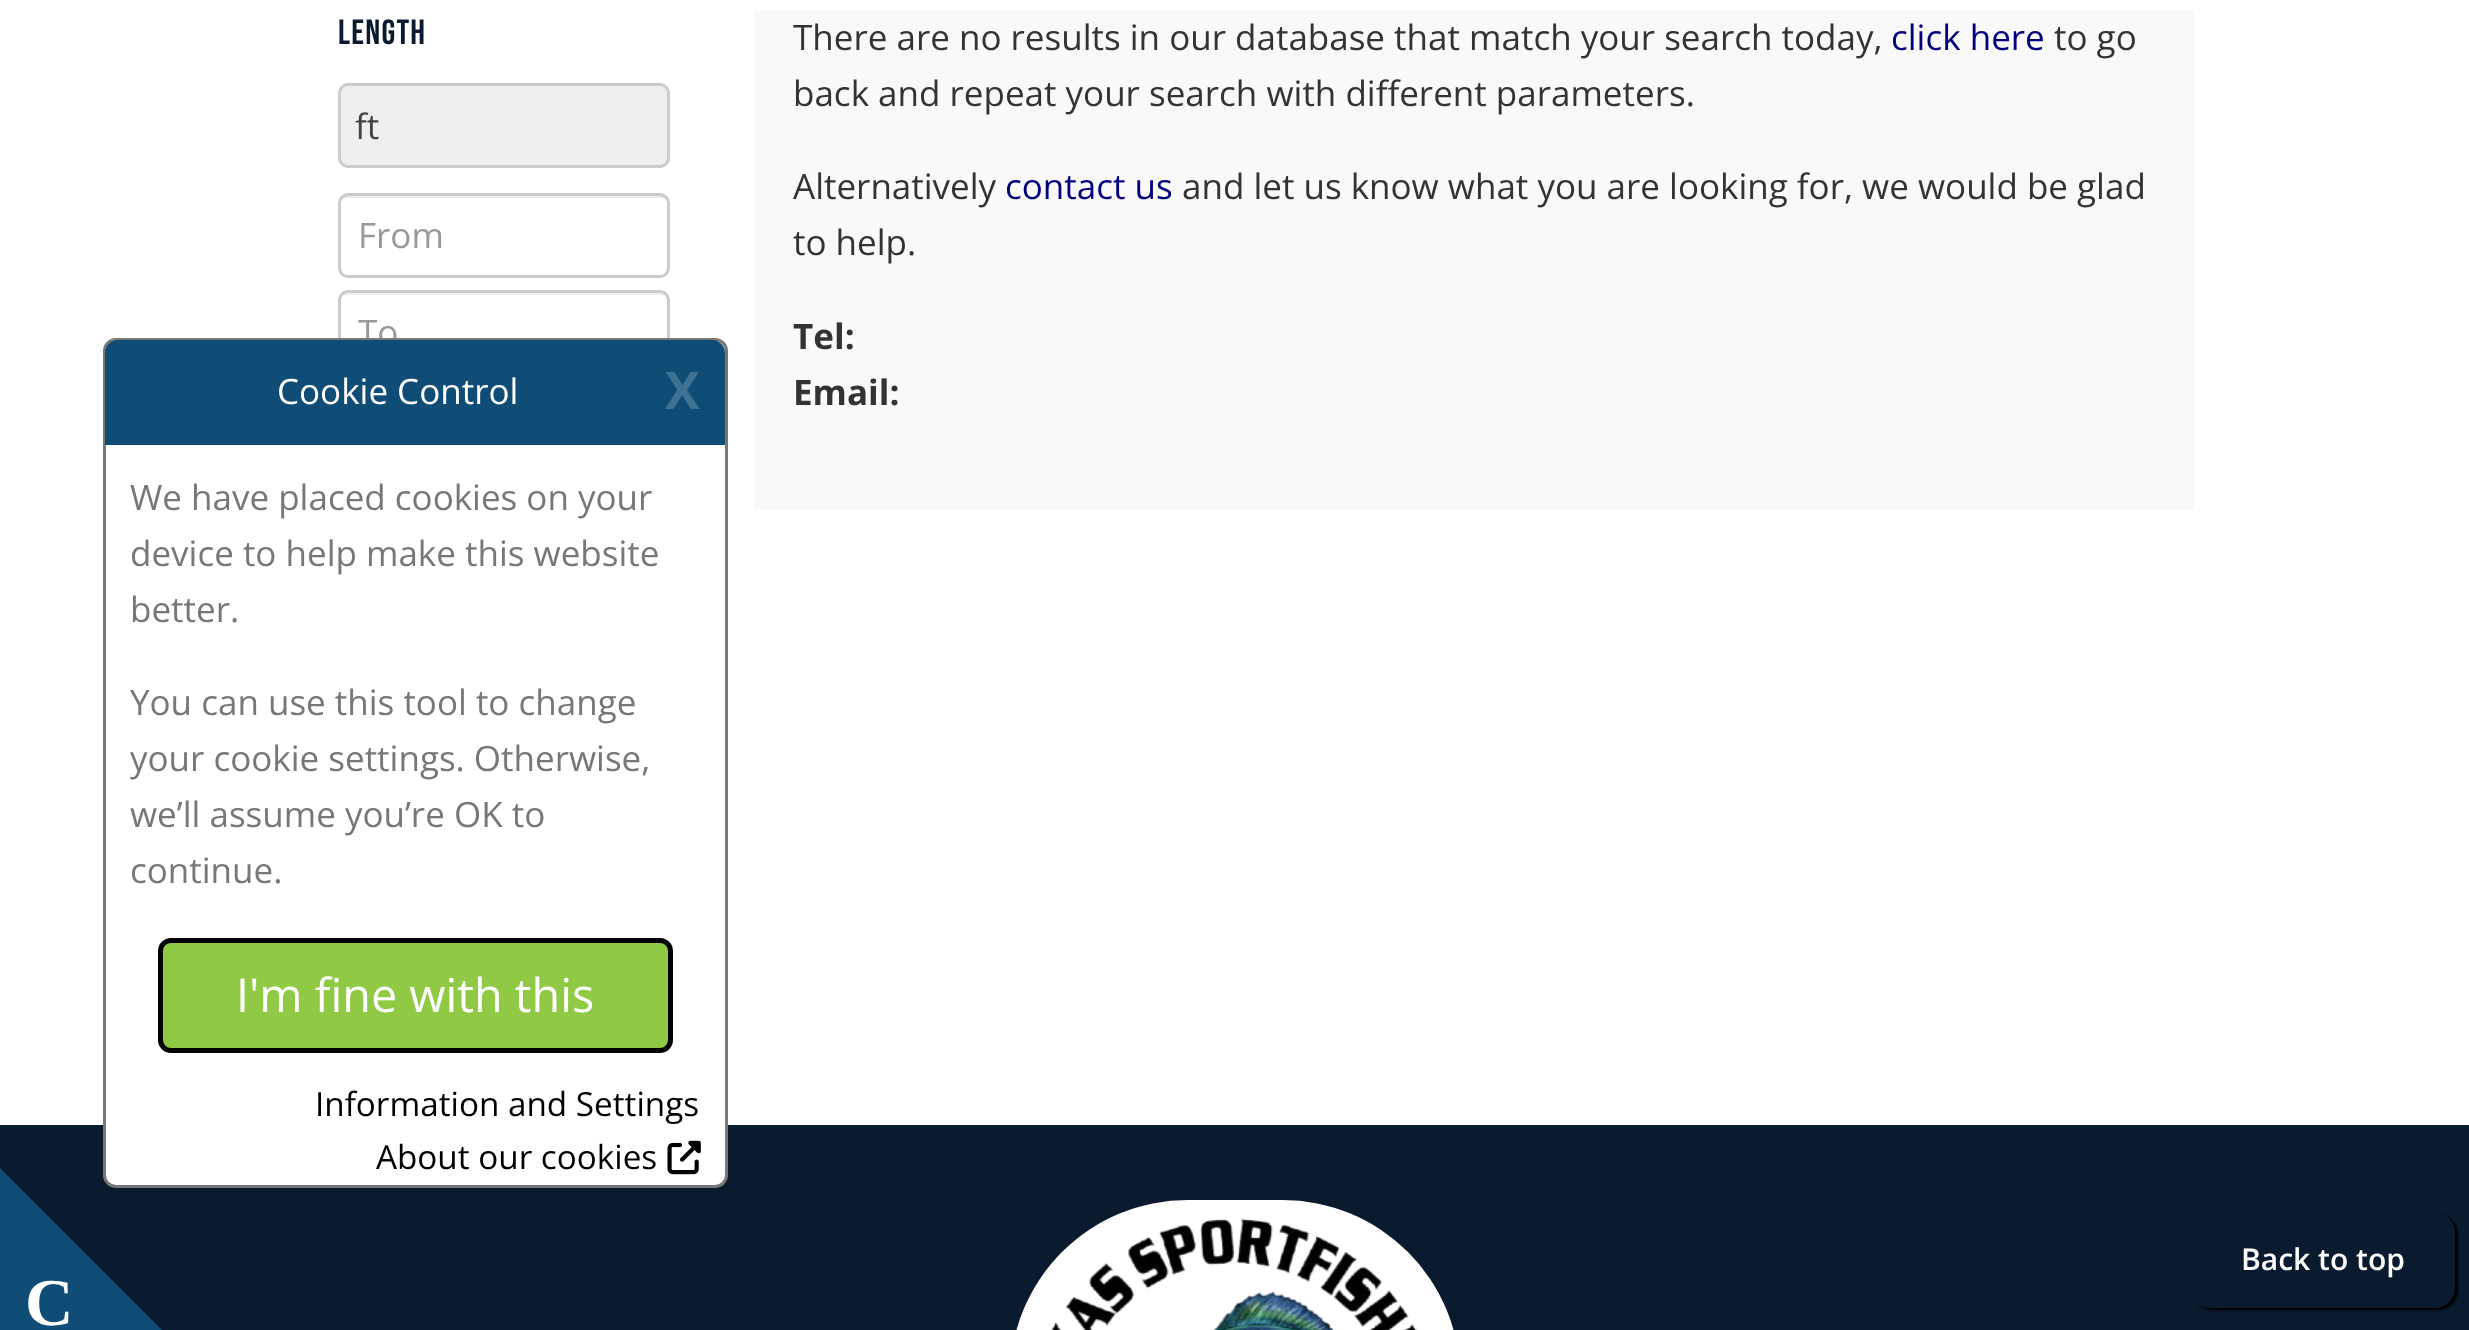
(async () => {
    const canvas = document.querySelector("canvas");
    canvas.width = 2469;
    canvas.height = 1330;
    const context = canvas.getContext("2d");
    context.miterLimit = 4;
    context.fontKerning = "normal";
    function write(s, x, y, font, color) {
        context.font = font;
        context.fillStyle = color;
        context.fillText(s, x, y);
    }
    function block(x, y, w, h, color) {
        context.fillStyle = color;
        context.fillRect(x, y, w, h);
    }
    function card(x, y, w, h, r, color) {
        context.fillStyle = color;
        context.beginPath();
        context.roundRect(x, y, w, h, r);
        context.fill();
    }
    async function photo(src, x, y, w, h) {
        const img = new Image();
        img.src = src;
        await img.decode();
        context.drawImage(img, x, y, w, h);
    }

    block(0, 0, 2469, 1330, "rgb(255, 255, 255)");
    context.letterSpacing = "1.25px";
    write("Length", 338, 44, "35px Bebas Neue", "rgb(10, 26, 47)");
    context.fillStyle = "rgb(239, 239, 239)";
    context.beginPath();
    context.roundRect(339.5, 84.5, 329, 82, 8.5);
    context.fill();
    context.strokeStyle = "rgb(204, 204, 204)";
    context.lineWidth = 3;
    context.stroke();
    context.letterSpacing = "0px";
    write("ft", 355, 139, "35px Open Sans", "rgb(68, 68, 68)");
    context.fillStyle = "rgb(236, 236, 236)";
    context.beginPath();
    context.moveTo(348, 198);
    context.lineTo(660, 198);
    context.bezierCurveTo(664, 198, 668, 201, 668, 205);
    context.bezierCurveTo(668, 201, 667, 196, 662, 195);
    context.lineTo(346, 195);
    context.bezierCurveTo(341, 196, 340, 201, 340, 205);
    context.bezierCurveTo(340, 201, 343, 198, 348, 198);
    context.closePath();
    context.fill();
    context.beginPath();
    context.roundRect(339.5, 194.5, 329, 82, 8.5);
    context.stroke();
    write("From", 358, 248, "35px Open Sans", "rgb(153, 153, 153)");
    context.fillStyle = "rgb(236, 236, 236)";
    context.beginPath();
    context.moveTo(348, 295);
    context.lineTo(660, 295);
    context.bezierCurveTo(664, 295, 668, 298, 668, 302);
    context.lineTo(668, 301);
    context.bezierCurveTo(668, 297, 664, 293, 660, 293);
    context.lineTo(348, 293);
    context.bezierCurveTo(344, 293, 340, 297, 340, 301);
    context.lineTo(340, 302);
    context.bezierCurveTo(340, 298, 343, 295, 348, 295);
    context.closePath();
    context.fill();
    context.beginPath();
    context.roundRect(339.5, 291.5, 329, 82, 8.5);
    context.stroke();
    context.save();
    context.beginPath();
    context.rect(358, 308, 280, 47);
    context.clip();
    write("To", 358, 345, "35px Open Sans", "rgb(153, 153, 153)");
    context.restore();
    block(755, 10, 1440, 500, "rgb(249, 249, 249)");
    write("There are no results in our database that match your search today,", 793, 50, "35px Open Sans", "rgb(51, 51, 51)");
    write("click here", 1891, 50, "35px Open Sans", "rgb(2, 0, 124)");
    write("to go", 2054, 50, "35px Open Sans", "rgb(51, 51, 51)");
    write("back and repeat your search with different parameters.", 793, 106, "35px Open Sans", "rgb(51, 51, 51)");
    write("Alternatively", 793, 199, "35px Open Sans", "rgb(51, 51, 51)");
    write("contact us", 1005, 199, "35px Open Sans", "rgb(2, 0, 124)");
    write("and let us know what you are looking for, we would be glad", 1182, 199, "35px Open Sans", "rgb(51, 51, 51)");
    write("to help.", 793, 255, "35px Open Sans", "rgb(51, 51, 51)");
    write("Tel:", 793, 349, "bold 35px Open Sans", "rgb(51, 51, 51)");
    write("Email:", 793, 405, "bold 35px Open Sans", "rgb(51, 51, 51)");
    block(0, 1125, 2469, 205, "rgb(10, 26, 47)");
    context.fillStyle = "rgb(0, 0, 0)";
    context.filter = "blur(1px)";
    context.beginPath();
    context.roundRect(2193, 1215, 265, 95, 20);
    context.fill();
    context.filter = "none";
    card(2190, 1213, 265, 95, 20, "rgb(10, 26, 47)");
    write("Back to top", 2241, 1270, "600 30px Open Sans", "rgb(255, 255, 255)");
    context.fillStyle = "rgb(15, 77, 119)";
    context.beginPath();
    context.moveTo(0, 1330);
    context.lineTo(0, 1168);
    context.lineTo(162, 1330);
    context.closePath();
    context.fill();
    context.fillStyle = "rgb(255, 255, 255)";
    context.beginPath();
    context.roundRect(104.5, 339.5, 622, 847, 11.5);
    context.fill();
    context.strokeStyle = "rgb(119, 119, 119)";
    context.stroke();
    context.fillStyle = "rgb(15, 77, 119)";
    context.beginPath();
    context.roundRect(105, 340, 620, 105, [13, 13, 0, 0]);
    context.fill();
    write("Cookie Control", 277, 404, "35px Open Sans", "rgb(255, 255, 255)");
    write("X", 665, 409, "bold 52px Open Sans", "rgb(63, 113, 146)");
    write("We have placed cookies on your", 130, 510, "35px Open Sans", "rgb(119, 119, 119)");
    write("device to help make this website", 130, 566, "35px Open Sans", "rgb(119, 119, 119)");
    write("better.", 130, 622, "35px Open Sans", "rgb(119, 119, 119)");
    write("You can use this tool to change", 130, 715, "35px Open Sans", "rgb(119, 119, 119)");
    write("your cookie settings. Otherwise,", 130, 771, "35px Open Sans", "rgb(119, 119, 119)");
    write("we’ll assume you’re OK to", 130, 827, "35px Open Sans", "rgb(119, 119, 119)");
    write("continue.", 130, 883, "35px Open Sans", "rgb(119, 119, 119)");
    context.fillStyle = "rgb(144, 201, 68)";
    context.beginPath();
    context.roundRect(160.5, 940.5, 510, 110, 10.5);
    context.fill();
    context.strokeStyle = "rgb(0, 0, 0)";
    context.lineWidth = 5;
    context.stroke();
    write("I'm fine with this", 236, 1012, "46.75px Open Sans", "rgb(255, 255, 255)");
    write("Information and Settings", 315, 1116, "33.25px Open Sans", "rgb(0, 0, 0)");
    write("About our cookies", 376, 1169, "33.25px Open Sans", "rgb(0, 0, 0)");
    await photo("media/1.png", 667, 1140, 34, 35);
    card(1010, 1200, 450, 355, 225, "rgb(255, 255, 255)");
    await photo("media/2.png", 1051, 1218, 366, 112);
    write("C", 25, 1325, "bold 67px Liberation Serif", "rgb(255, 255, 255)");
})();
